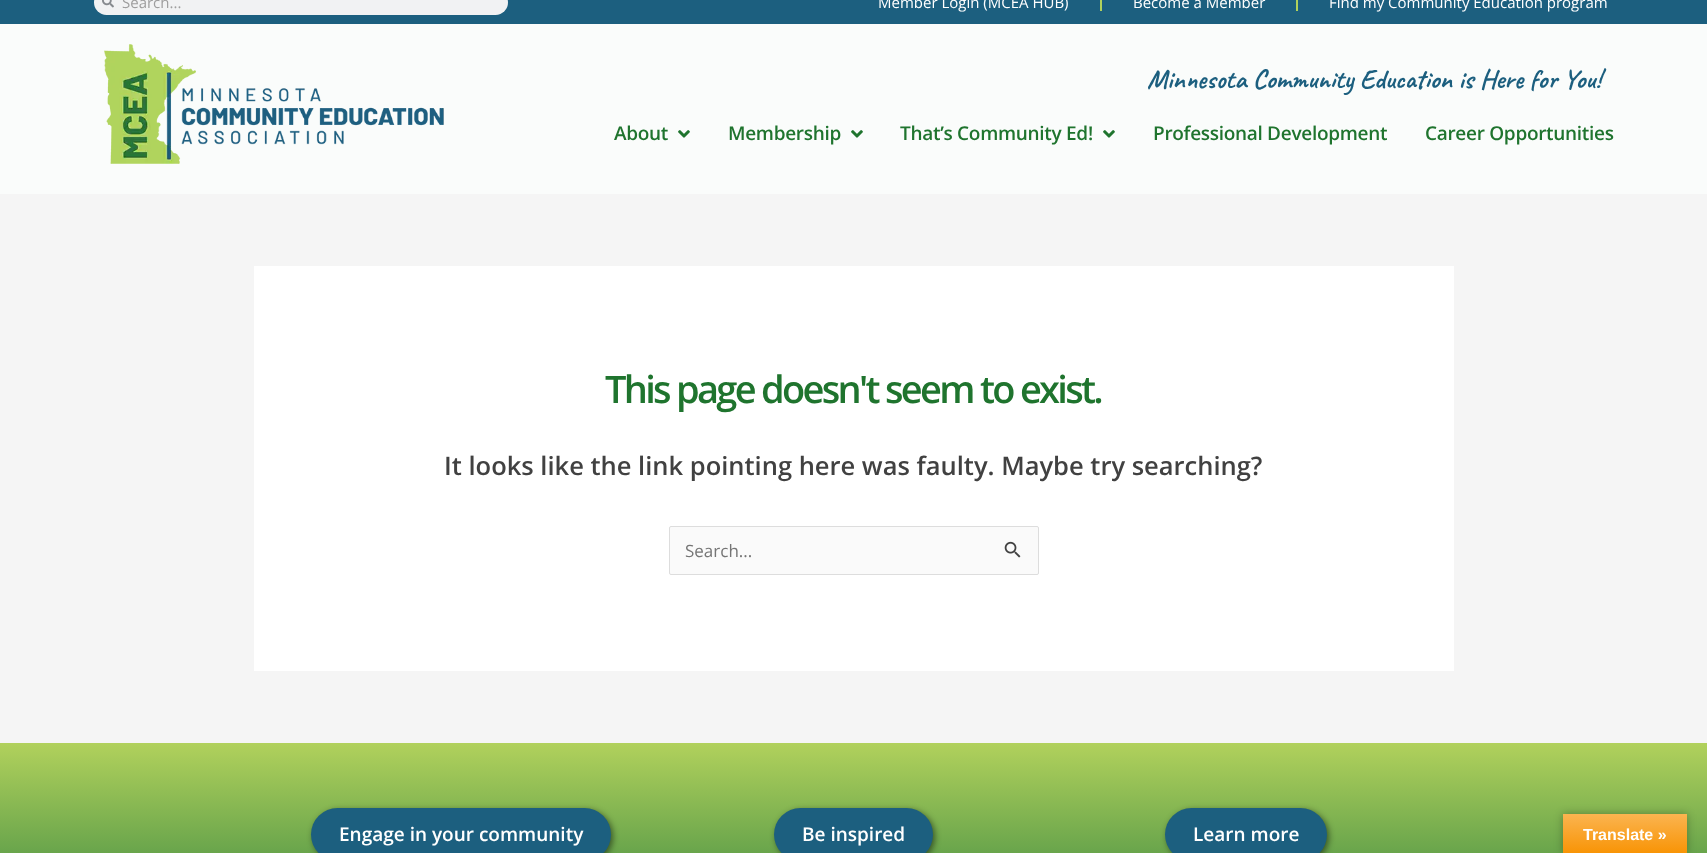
(async () => {
    const canvas = document.querySelector("canvas");
    canvas.width = 1707;
    canvas.height = 853;
    const context = canvas.getContext("2d");
    context.miterLimit = 4;
    context.fontKerning = "normal";
    function write(s, x, y, font, color) {
        context.font = font;
        context.fillStyle = color;
        context.fillText(s, x, y);
    }
    function block(x, y, w, h, color) {
        context.fillStyle = color;
        context.fillRect(x, y, w, h);
    }
    function card(x, y, w, h, r, color) {
        context.fillStyle = color;
        context.beginPath();
        context.roundRect(x, y, w, h, r);
        context.fill();
    }
    async function photo(src, x, y, w, h) {
        const img = new Image();
        img.src = src;
        await img.decode();
        context.drawImage(img, x, y, w, h);
    }
    let gradient;

    block(0, 0, 1707, 853, "rgb(245, 245, 245)");
    block(0, 0, 1707, 24, "rgb(28, 95, 127)");
    card(94, -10, 414, 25, 12.5, "rgb(241, 242, 243)");
    await photo("media/1.png", 102, 0, 12, 8);
    write("Search...", 122, 8, "15px Open Sans", "rgb(158, 158, 158)");
    write("Member Login (MCEA HUB)", 878, 8, "15px Open Sans", "rgb(255, 255, 255)");
    block(1100, 0, 2, 11, "rgb(177, 209, 92)");
    write("Become a Member", 1133, 8, "15px Open Sans", "rgb(255, 255, 255)");
    block(1296, 0, 2, 11, "rgb(177, 209, 92)");
    write("Find my Community Education program", 1329, 8, "15px Open Sans", "rgb(255, 255, 255)");
    block(0, 24, 1707, 170, "rgb(250, 252, 251)");
    await photo("media/2.png", 104, 44, 340, 120);
    write("Minnesota Community Education is Here for You!", 1147, 88, "bold 27px Caveat", "rgb(28, 95, 127)");
    context.letterSpacing = "-0.3px";
    write("About", 614, 140, "600 19px Open Sans", "rgb(31, 116, 46)");
    await photo("media/3.png", 678, 130, 12, 8);
    write("Membership", 728, 140, "600 19px Open Sans", "rgb(31, 116, 46)");
    await photo("media/3.png", 851, 130, 12, 8);
    write("That’s Community Ed!", 900, 140, "600 19px Open Sans", "rgb(31, 116, 46)");
    await photo("media/3.png", 1103, 130, 12, 8);
    write("Professional Development", 1153, 140, "600 19px Open Sans", "rgb(31, 116, 46)");
    write("Career Opportunities", 1425, 140, "600 19px Open Sans", "rgb(31, 116, 46)");
    block(254, 266, 1200, 405, "rgb(255, 255, 255)");
    context.letterSpacing = "-2.7px";
    write("This page doesn't seem to exist.", 605, 403, "600 38px Open Sans", "rgb(31, 116, 46)");
    context.letterSpacing = "0px";
    write("It looks like the link pointing here was faulty. Maybe try searching?", 444, 475, "600 25.5px Open Sans", "rgb(65, 65, 65)");
    context.fillStyle = "rgb(250, 250, 250)";
    context.beginPath();
    context.roundRect(669.5, 526.5, 369, 48, 1.5);
    context.fill();
    context.strokeStyle = "rgb(221, 221, 221)";
    context.stroke();
    write("Search...", 685, 557, "17px Open Sans", "rgb(117, 117, 117)");
    await photo("media/4.png", 1004, 541, 17, 17);
    gradient = context.createLinearGradient(854, 743, 854, 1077);
    gradient.addColorStop(0, "rgb(177, 209, 92)");
    gradient.addColorStop(0.58, "rgb(50, 131, 63)");
    context.fillStyle = gradient;
    context.fillRect(0, 743, 1707, 110);
    context.fillStyle = "rgba(0, 0, 0, 0.5)";
    context.filter = "blur(3px)";
    context.beginPath();
    context.roundRect(313, 810, 300, 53, 26.5);
    context.fill();
    context.filter = "none";
    card(311, 808, 300, 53, 26.5, "rgb(28, 95, 127)");
    write("Engage in your community", 339, 841, "600 19px Open Sans", "rgb(255, 255, 255)");
    context.fillStyle = "rgba(0, 0, 0, 0.5)";
    context.filter = "blur(3px)";
    context.beginPath();
    context.roundRect(776, 810, 159, 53, 26.5);
    context.fill();
    context.filter = "none";
    card(774, 808, 159, 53, 26.5, "rgb(28, 95, 127)");
    write("Be inspired", 802, 841, "600 19px Open Sans", "rgb(255, 255, 255)");
    context.fillStyle = "rgba(0, 0, 0, 0.5)";
    context.filter = "blur(3px)";
    context.beginPath();
    context.roundRect(1167, 810, 162, 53, 26.5);
    context.fill();
    context.filter = "none";
    card(1165, 808, 162, 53, 26.5, "rgb(28, 95, 127)");
    write("Learn more", 1193, 841, "600 19px Open Sans", "rgb(255, 255, 255)");
    context.fillStyle = "rgba(0, 0, 0, 0.3)";
    context.filter = "blur(4.5px)";
    context.beginPath();
    context.rect(1563, 814, 124, 39);
    context.fill();
    context.filter = "none";
    gradient = context.createLinearGradient(1625, 814, 1625, 853);
    gradient.addColorStop(0, "rgb(251, 180, 80)");
    gradient.addColorStop(1, "rgb(248, 148, 6)");
    context.fillStyle = gradient;
    context.fillRect(1563, 814, 124, 39);
    write("Translate »", 1583, 840, "bold 16px Liberation Sans", "rgb(255, 255, 255)");
})();
